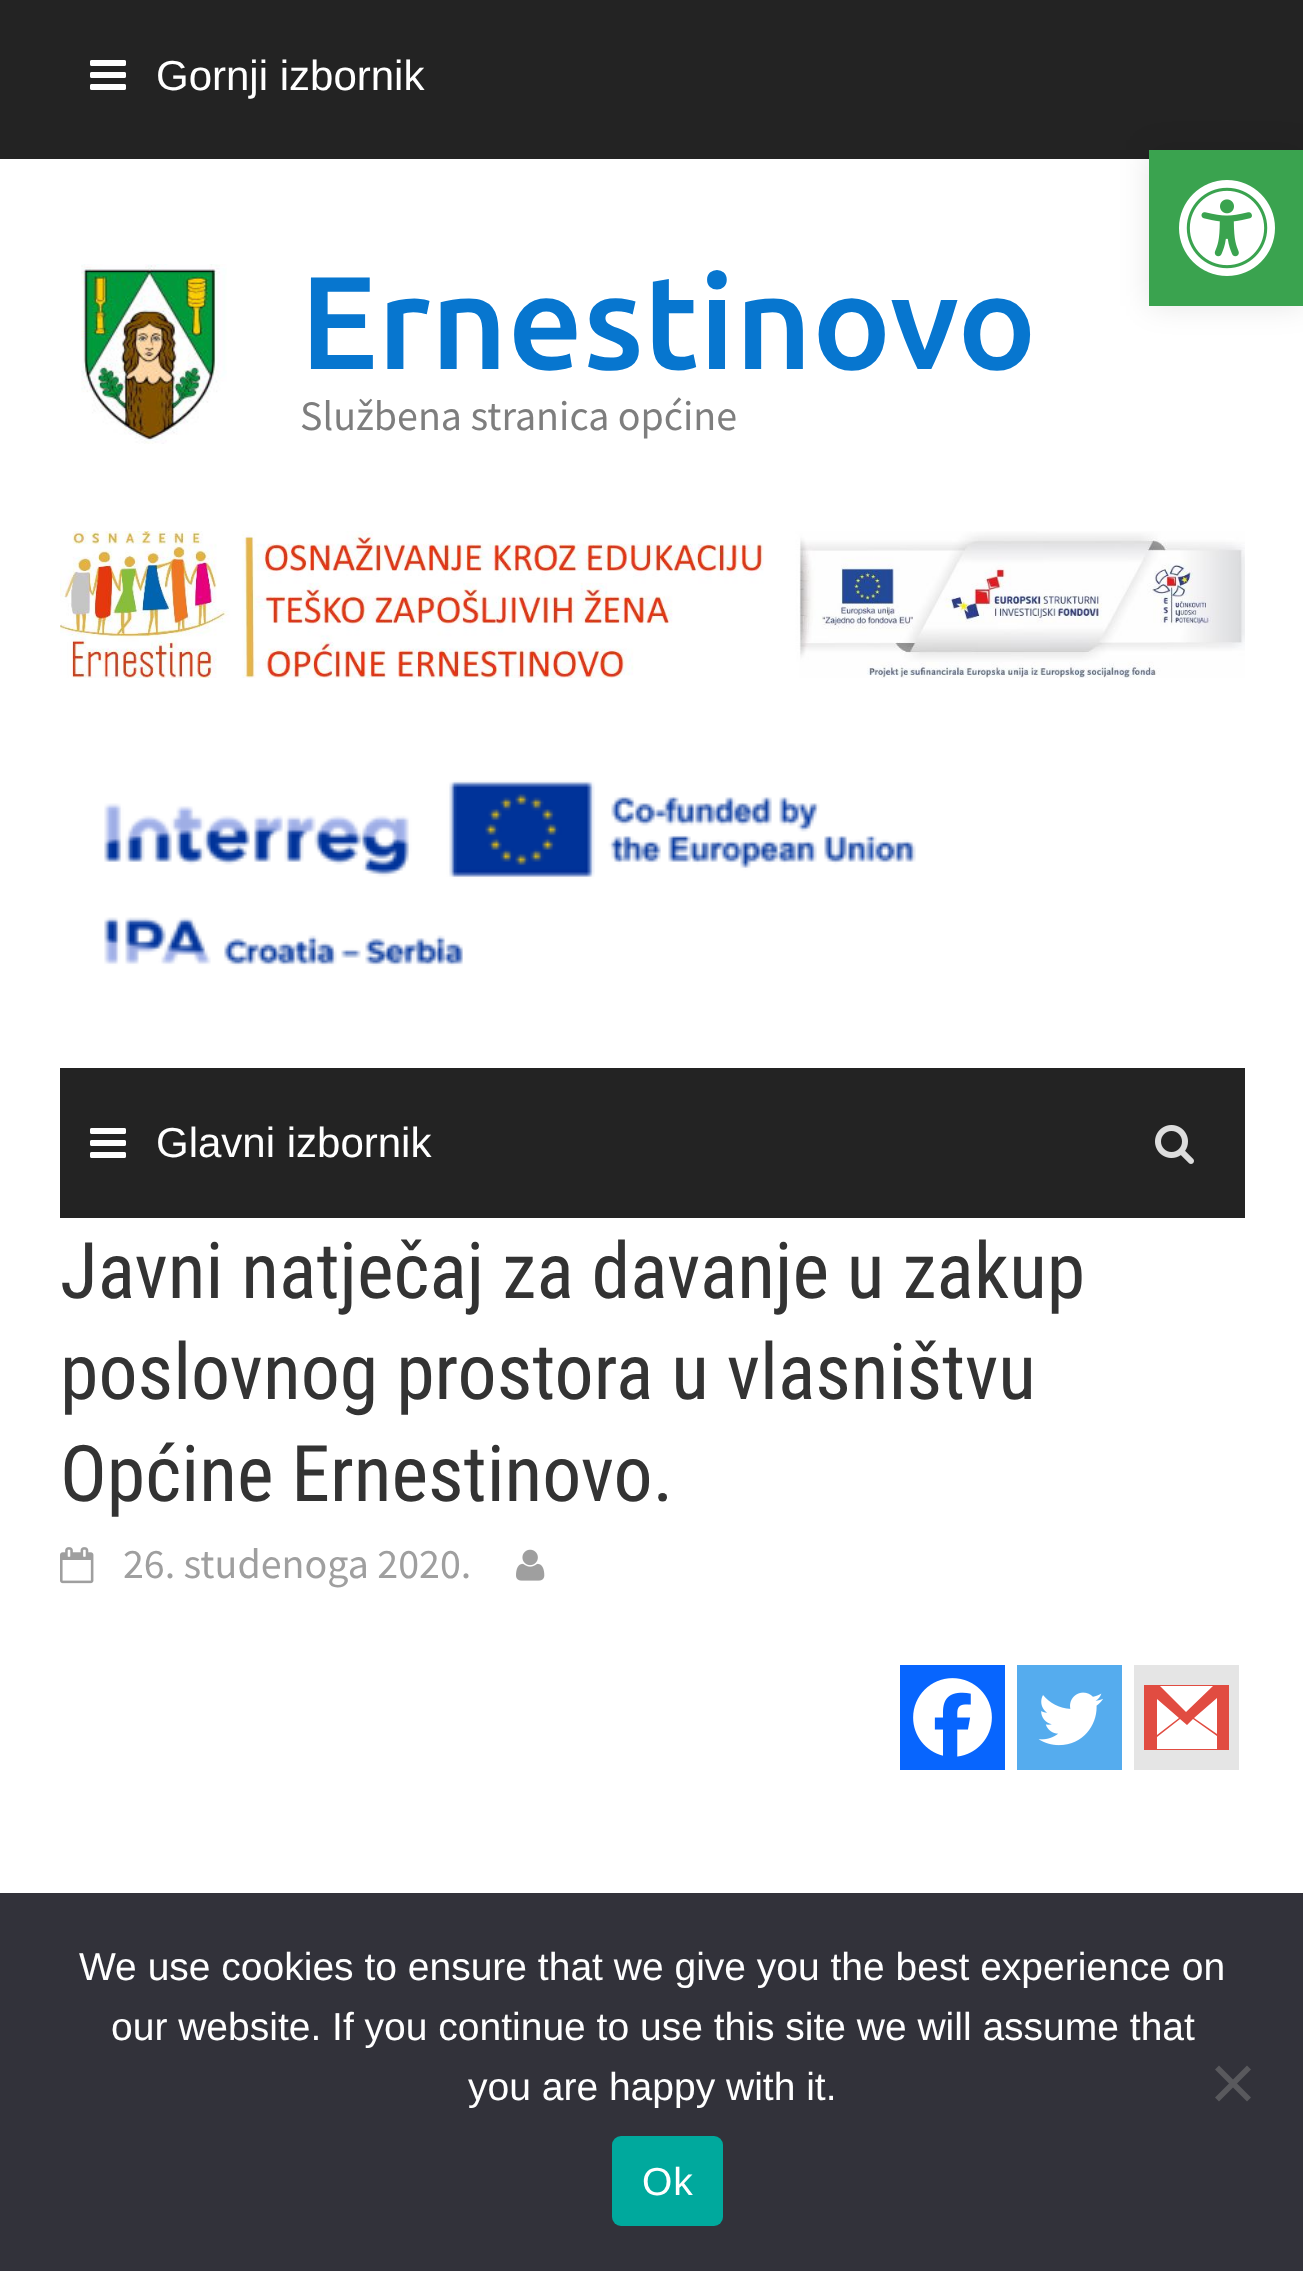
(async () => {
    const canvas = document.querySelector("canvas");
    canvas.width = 1303;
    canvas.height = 2271;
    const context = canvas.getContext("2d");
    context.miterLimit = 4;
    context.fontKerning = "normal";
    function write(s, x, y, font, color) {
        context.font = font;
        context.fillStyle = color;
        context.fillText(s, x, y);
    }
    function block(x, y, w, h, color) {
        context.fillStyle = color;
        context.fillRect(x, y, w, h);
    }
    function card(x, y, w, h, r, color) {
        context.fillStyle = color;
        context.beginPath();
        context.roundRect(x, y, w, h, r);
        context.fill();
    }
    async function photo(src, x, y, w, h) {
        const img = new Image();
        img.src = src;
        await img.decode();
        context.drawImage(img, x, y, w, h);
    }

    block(0, 0, 1303, 2271, "rgb(255, 255, 255)");
    block(0, 0, 1303, 159, "rgb(35, 35, 35)");
    await photo("media/1.png", 90, 60, 36, 30);
    write("Gornji izbornik", 156, 90, "42px Liberation Sans", "rgb(255, 255, 255)");
    await photo("media/2.png", 81, 264, 146, 180);
    write("Ernestinovo", 300, 369, "500 132px Ubuntu", "rgb(7, 118, 207)");
    write("Službena stranica općine", 300, 430, "42px Source Sans Pro", "rgb(126, 126, 126)");
    await photo("media/3.png", 60, 531, 1185, 147);
    await photo("media/4.png", 104, 780, 812, 186);
    block(60, 1068, 1185, 150, "rgb(35, 35, 35)");
    await photo("media/1.png", 90, 1128, 36, 30);
    write("Glavni izbornik", 156, 1157, "42px Liberation Sans", "rgb(255, 255, 255)");
    await photo("media/5.png", 1155, 1125, 39, 39);
    write("Javni natječaj za davanje u zakup", 60, 1298, "78px Roboto Condensed", "rgb(51, 51, 51)");
    write("poslovnog prostora u vlasništvu", 60, 1399, "78px Roboto Condensed", "rgb(51, 51, 51)");
    write("Općine Ernestinovo.", 60, 1501, "78px Roboto Condensed", "rgb(51, 51, 51)");
    await photo("media/6.png", 60, 1547, 34, 37);
    write("26. studenoga 2020.", 123, 1578, "42px Source Sans Pro", "rgb(159, 159, 159)");
    await photo("media/7.png", 516, 1549, 29, 32);
    block(900, 1665, 105, 105, "rgb(7, 101, 254)");
    await photo("media/8.png", 913, 1678, 79, 79);
    block(1017, 1665, 105, 105, "rgb(85, 172, 238)");
    await photo("media/9.png", 1038, 1692, 65, 54);
    block(1134, 1665, 105, 105, "rgb(229, 229, 229)");
    block(1157, 1686, 60, 63, "rgb(255, 255, 255)");
    context.fillStyle = "rgb(225, 76, 65)";
    context.beginPath();
    context.moveTo(1144, 1750);
    context.lineTo(1229, 1750);
    context.lineTo(1229, 1685);
    context.lineTo(1144, 1685);
    context.closePath();
    context.moveTo(1217, 1736);
    context.lineTo(1217, 1749);
    context.lineTo(1157, 1749);
    context.lineTo(1157, 1737);
    context.lineTo(1180, 1719);
    context.lineTo(1187, 1725);
    context.lineTo(1193, 1719);
    context.closePath();
    context.moveTo(1217, 1734);
    context.lineTo(1194, 1718);
    context.lineTo(1217, 1698);
    context.closePath();
    context.moveTo(1213, 1686);
    context.lineTo(1186, 1712);
    context.lineTo(1160, 1686);
    context.closePath();
    context.moveTo(1179, 1718);
    context.lineTo(1157, 1735);
    context.lineTo(1157, 1699);
    context.lineTo(1179, 1718);
    context.fill();
    context.fillStyle = "rgba(0, 0, 0, 0.1)";
    context.filter = "blur(15px)";
    context.beginPath();
    context.rect(1149, 150, 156, 156);
    context.fill();
    context.filter = "none";
    block(1149, 150, 154, 156, "rgb(58, 163, 79)");
    await photo("media/10.png", 1179, 180, 96, 96);
    block(0, 1893, 1303, 378, "rgb(50, 50, 58)");
    write("We use cookies to ensure that we give you the best experience on", 79, 1980, "39px Liberation Sans", "rgb(255, 255, 255)");
    write("our website. If you continue to use this site we will assume that", 111, 2040, "39px Liberation Sans", "rgb(255, 255, 255)");
    write("you are happy with it.", 468, 2100, "39px Liberation Sans", "rgb(255, 255, 255)");
    context.fillStyle = "rgb(89, 89, 93)";
    context.beginPath();
    context.moveTo(1247, 2065.5);
    context.lineTo(1251, 2069.5);
    context.lineTo(1219, 2101.5);
    context.lineTo(1215, 2097.5);
    context.closePath();
    context.fill();
    context.beginPath();
    context.moveTo(1215, 2069.5);
    context.lineTo(1219, 2065.5);
    context.lineTo(1251, 2097.5);
    context.lineTo(1247, 2101.5);
    context.closePath();
    context.fill();
    card(612, 2136, 111, 90, 9, "rgb(0, 169, 157)");
    context.letterSpacing = "1px";
    write("Ok", 642, 2195, "39px Liberation Sans", "rgb(255, 255, 255)");
})();
